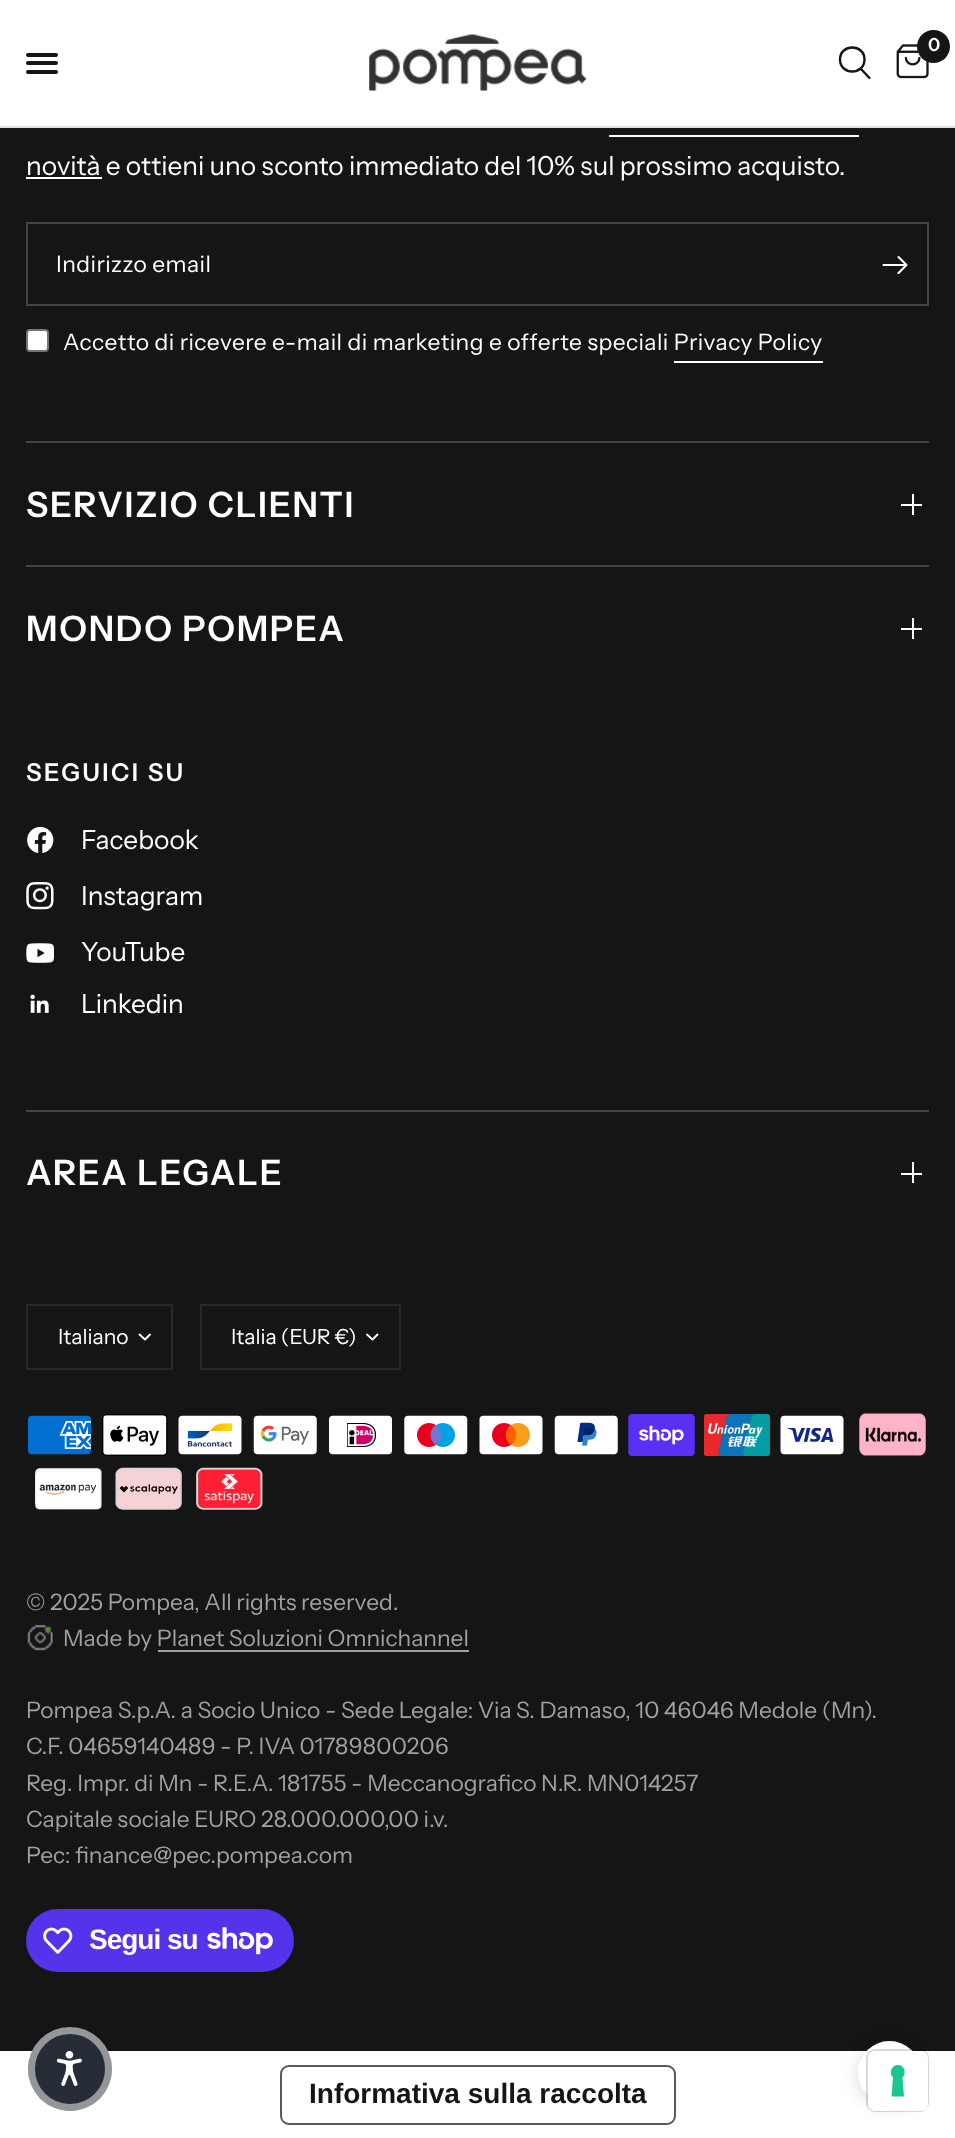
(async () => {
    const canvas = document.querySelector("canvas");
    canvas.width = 955;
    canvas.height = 2138;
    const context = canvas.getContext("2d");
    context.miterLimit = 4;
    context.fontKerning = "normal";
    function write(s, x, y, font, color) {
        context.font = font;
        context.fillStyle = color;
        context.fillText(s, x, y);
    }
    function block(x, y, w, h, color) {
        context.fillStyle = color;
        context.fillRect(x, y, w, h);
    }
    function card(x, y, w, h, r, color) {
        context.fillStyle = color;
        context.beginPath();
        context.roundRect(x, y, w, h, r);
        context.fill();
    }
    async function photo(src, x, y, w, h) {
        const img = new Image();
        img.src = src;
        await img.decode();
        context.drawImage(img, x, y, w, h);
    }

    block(0, 0, 955, 2138, "rgb(255, 255, 255)");
    block(0, 126, 955, 2, "rgb(226, 226, 226)");
    await photo("media/1.png", 369, 34, 218, 57);
    context.beginPath();
    context.moveTo(861, 69);
    context.lineTo(869.5, 78);
    context.moveTo(864.5, 59.5);
    context.bezierCurveTo(864.5, 75.5, 840, 75.5, 840, 59.5);
    context.bezierCurveTo(840, 43.5, 864.5, 43.5, 864.5, 59.5);
    context.closePath();
    context.strokeStyle = "rgb(21, 21, 21)";
    context.lineWidth = 2.4;
    context.lineCap = "round";
    context.lineJoin = "round";
    context.stroke();
    await photo("media/2.png", 896, 44, 33, 35);
    context.fillStyle = "rgb(21, 21, 21)";
    context.beginPath();
    context.arc(933.5, 46.5, 16.5, 0, Math.PI * 2);
    context.fill();
    write("0", 928, 51, "600 18px Instrument Sans", "rgb(255, 255, 255)");
    card(26, 53, 32, 4, 2, "rgb(21, 21, 21)");
    card(26, 61, 32, 4, 2, "rgb(21, 21, 21)");
    card(26, 70, 32, 4, 2, "rgb(21, 21, 21)");
    block(0, 128, 955, 1923, "rgb(21, 21, 21)");
    block(26, 177, 76, 2, "rgb(255, 255, 255)");
    write("novità e ottieni uno sconto immediato del 10% sul prossimo acquisto.", 26, 175, "26.25px Instrument Sans", "rgb(255, 255, 255)");
    block(609, 135, 250, 2, "rgb(255, 255, 255)");
    context.strokeStyle = "rgb(68, 68, 68)";
    context.lineWidth = 2;
    context.lineJoin = "miter";
    context.strokeRect(27, 223, 901, 82);
    context.letterSpacing = "0.45px";
    write("Indirizzo email", 56, 272, "22.75px Instrument Sans", "rgb(255, 255, 255)");
    context.beginPath();
    context.moveTo(883.5, 265);
    context.lineTo(904.5, 265);
    context.moveTo(898.5, 257);
    context.lineTo(906.5, 265);
    context.lineTo(898.5, 273);
    context.strokeStyle = "rgb(255, 255, 255)";
    context.lineWidth = 2.1;
    context.lineJoin = "round";
    context.stroke();
    context.beginPath();
    context.roundRect(27, 330, 21, 21, 3);
    context.fill();
    context.strokeStyle = "rgb(118, 118, 118)";
    context.lineWidth = 2;
    context.lineJoin = "miter";
    context.stroke();
    write("Accetto di ricevere e-mail di marketing e offerte speciali Privacy Policy", 63, 350, "22.75px Instrument Sans", "rgb(255, 255, 255)");
    block(674, 361, 149, 2, "rgb(255, 255, 255)");
    block(26, 441, 903, 2, "rgb(68, 68, 68)");
    context.letterSpacing = "1.75px";
    write("SERVIZIO CLIENTI", 26, 517, "600 35px Instrument Sans", "rgb(255, 255, 255)");
    block(912, 494, 2, 21, "rgb(255, 255, 255)");
    block(901, 504, 21, 2, "rgb(255, 255, 255)");
    block(26, 565, 903, 2, "rgb(68, 68, 68)");
    write("MONDO POMPEA", 26, 641, "600 35px Instrument Sans", "rgb(255, 255, 255)");
    block(912, 618, 2, 21, "rgb(255, 255, 255)");
    block(901, 628, 21, 2, "rgb(255, 255, 255)");
    context.letterSpacing = "2.5px";
    write("SEGUICI SU", 26, 781, "600 24.5px Instrument Sans", "rgb(255, 255, 255)");
    await photo("media/3.png", 27, 826, 27, 28);
    context.letterSpacing = "0px";
    write("Facebook", 81, 849, "26.25px Instrument Sans", "rgb(255, 255, 255)");
    await photo("media/4.png", 26, 882, 28, 28);
    write("Instagram", 81, 905, "26.25px Instrument Sans", "rgb(255, 255, 255)");
    await photo("media/5.png", 26, 943, 28, 20);
    write("YouTube", 81, 961, "26.25px Instrument Sans", "rgb(255, 255, 255)");
    await photo("media/6.png", 30, 994, 19, 19);
    write("Linkedin", 81, 1013, "26.25px Instrument Sans", "rgb(255, 255, 255)");
    block(26, 1110, 903, 2, "rgb(68, 68, 68)");
    context.letterSpacing = "1.75px";
    write("AREA LEGALE", 26, 1185, "600 35px Instrument Sans", "rgb(255, 255, 255)");
    block(912, 1162, 2, 21, "rgb(255, 255, 255)");
    block(901, 1173, 21, 2, "rgb(255, 255, 255)");
    context.strokeStyle = "rgb(40, 40, 40)";
    context.strokeRect(27, 1305, 145, 64);
    context.letterSpacing = "0px";
    write("Italiano", 58, 1344, "21px Instrument Sans", "rgb(255, 255, 255)");
    context.beginPath();
    context.moveTo(150, 1334.5);
    context.lineTo(145, 1339.5);
    context.lineTo(139.5, 1334.5);
    context.strokeStyle = "rgb(255, 255, 255)";
    context.lineWidth = 1.9;
    context.lineJoin = "round";
    context.stroke();
    context.strokeStyle = "rgb(40, 40, 40)";
    context.lineWidth = 2;
    context.lineJoin = "miter";
    context.strokeRect(201, 1305, 199, 64);
    write("Italia (EUR €)", 231, 1344, "21px Instrument Sans", "rgb(255, 255, 255)");
    context.beginPath();
    context.moveTo(377.5, 1334.5);
    context.lineTo(372.5, 1339.5);
    context.lineTo(367, 1334.5);
    context.strokeStyle = "rgb(255, 255, 255)";
    context.lineWidth = 1.9;
    context.lineJoin = "round";
    context.stroke();
    await photo("media/7.png", 28, 1415, 63, 40);
    await photo("media/8.png", 102, 1414, 66, 42);
    await photo("media/9.png", 178, 1415, 64, 40);
    await photo("media/10.png", 253, 1415, 64, 40);
    await photo("media/11.png", 329, 1415, 63, 40);
    await photo("media/12.png", 404, 1415, 64, 40);
    await photo("media/13.png", 479, 1415, 64, 40);
    await photo("media/14.png", 554, 1415, 64, 40);
    await photo("media/15.png", 628, 1414, 67, 42);
    await photo("media/16.png", 704, 1414, 66, 42);
    await photo("media/17.png", 780, 1415, 64, 40);
    await photo("media/18.png", 859, 1413, 67, 43);
    await photo("media/19.png", 35, 1467, 67, 43);
    await photo("media/20.png", 115, 1467, 67, 43);
    await photo("media/21.png", 196, 1467, 67, 43);
    write("© 2025 Pompea, All rights reserved.", 26, 1610, "22.75px Instrument Sans", "rgb(161, 161, 161)");
    await photo("media/22.png", 27, 1624, 26, 27);
    write("Made by Planet Soluzioni Omnichannel", 63, 1646, "22.75px Instrument Sans", "rgb(161, 161, 161)");
    block(158, 1650, 311, 2, "rgb(161, 161, 161)");
    write("Pompea S.p.A. a Socio Unico - Sede Legale: Via S. Damaso, 10 46046 Medole (Mn).", 26, 1718, "22.75px Instrument Sans", "rgb(161, 161, 161)");
    write("C.F. 04659140489 - P. IVA 01789800206", 26, 1754, "22.75px Instrument Sans", "rgb(161, 161, 161)");
    write("Reg. Impr. di Mn - R.E.A. 181755 - Meccanografico N.R. MN014257", 26, 1791, "22.75px Instrument Sans", "rgb(161, 161, 161)");
    write("Capitale sociale EURO 28.000.000,00 i.v.", 26, 1827, "22.75px Instrument Sans", "rgb(161, 161, 161)");
    write("Pec: finance@pec.pompea.com", 26, 1863, "22.75px Instrument Sans", "rgb(161, 161, 161)");
    card(26, 1909, 268, 63, 31.5, "rgb(84, 51, 235)");
    await photo("media/23.png", 43, 1927, 30, 27);
    context.letterSpacing = "-1px";
    write("Segui su", 89, 1949, "bold 28px Liberation Sans", "rgb(255, 255, 255)");
    await photo("media/24.png", 207, 1927, 66, 28);
    context.fillStyle = "rgb(39, 45, 54)";
    context.beginPath();
    context.arc(70, 2069, 42, 0, Math.PI * 2);
    context.fill();
    context.beginPath();
    context.arc(70, 2069, 38.5, 0, Math.PI * 2);
    context.strokeStyle = "rgba(255, 255, 255, 0.5)";
    context.lineWidth = 7;
    context.stroke();
    await photo("media/25.png", 56, 2051, 26, 35);
    context.fillStyle = "rgba(0, 0, 0, 0.15)";
    context.filter = "blur(9px)";
    context.beginPath();
    context.roundRect(858, 2044, 63, 63, 31.5);
    context.fill();
    context.filter = "none";
    context.fillStyle = "rgb(255, 255, 255)";
    context.beginPath();
    context.arc(889.5, 2072.5, 31.5, 0, Math.PI * 2);
    context.fill();
    context.beginPath();
    context.roundRect(281, 2066, 394, 58, 8);
    context.strokeStyle = "rgb(89, 89, 89)";
    context.lineWidth = 2;
    context.lineJoin = "miter";
    context.stroke();
    context.letterSpacing = "0px";
    write("Informativa sulla raccolta", 309, 2103, "bold 28px Liberation Sans", "rgb(21, 21, 21)");
    context.beginPath();
    context.roundRect(867, 2050, 61, 61, 8);
    context.strokeStyle = "rgba(0, 0, 0, 0.15)";
    context.stroke();
    card(868, 2051, 60, 60, 7, "rgb(255, 255, 255)");
    context.fillStyle = "rgb(28, 198, 145)";
    context.beginPath();
    context.moveTo(898, 2065);
    context.bezierCurveTo(904, 2065, 907, 2073, 902.5, 2077.5);
    context.lineTo(904, 2096.5);
    context.lineTo(891.5, 2096.5);
    context.lineTo(893, 2077.5);
    context.bezierCurveTo(888.5, 2073, 891.5, 2065, 898, 2065);
    context.closePath();
    context.fill("evenodd");
})();
